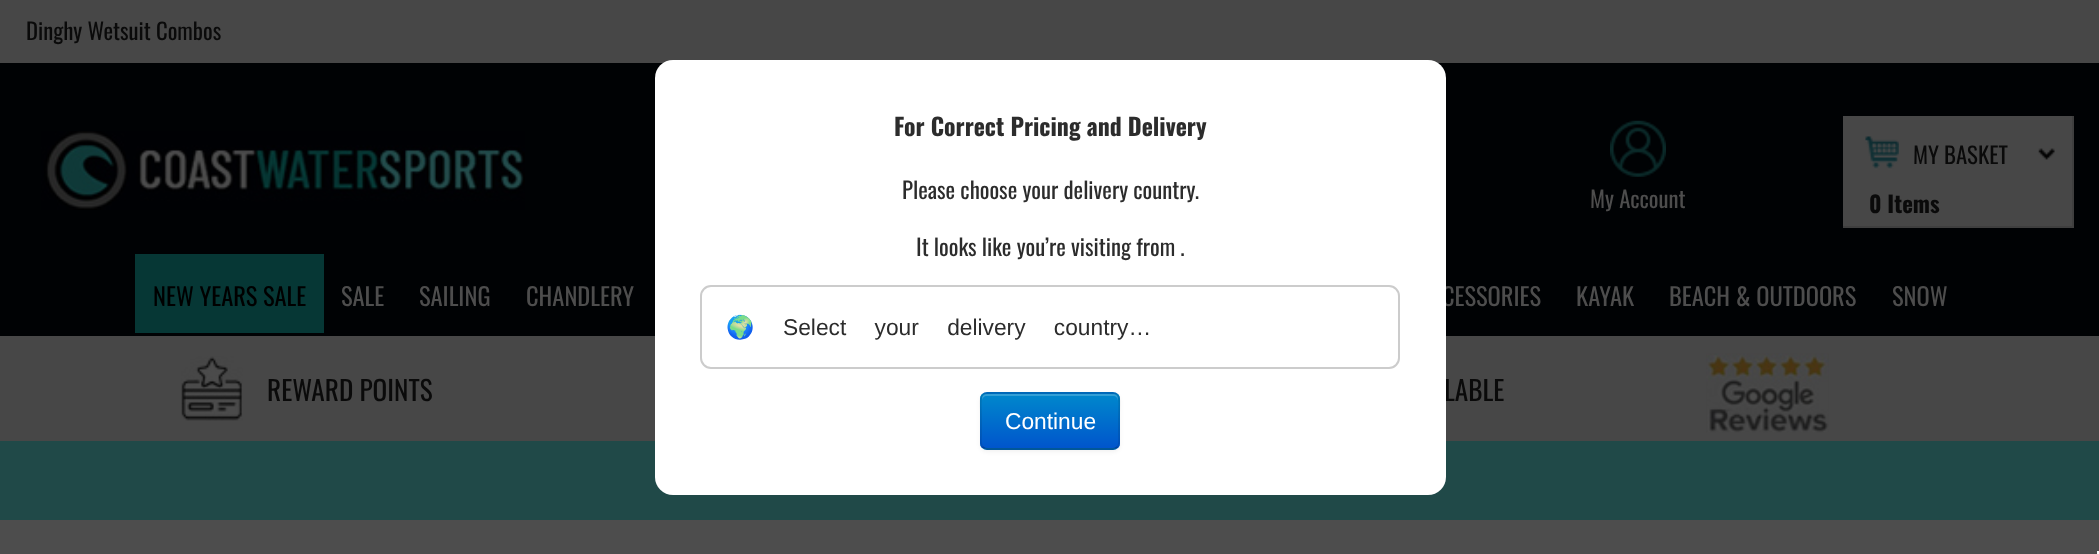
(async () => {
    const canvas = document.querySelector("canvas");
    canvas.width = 2099;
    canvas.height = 554;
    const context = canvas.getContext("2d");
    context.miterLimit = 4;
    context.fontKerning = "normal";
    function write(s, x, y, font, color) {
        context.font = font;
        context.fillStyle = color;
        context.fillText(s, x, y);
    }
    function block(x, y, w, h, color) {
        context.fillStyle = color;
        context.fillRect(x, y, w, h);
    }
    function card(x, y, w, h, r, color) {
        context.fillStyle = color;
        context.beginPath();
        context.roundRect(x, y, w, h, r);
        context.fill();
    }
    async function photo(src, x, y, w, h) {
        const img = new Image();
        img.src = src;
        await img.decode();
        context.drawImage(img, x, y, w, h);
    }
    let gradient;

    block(0, 0, 2099, 554, "rgb(77, 77, 77)");
    block(0, 0, 2099, 63, "rgb(71, 71, 71)");
    write("Dinghy Wetsuit Combos", 26, 40, "22.75px Oswald", "rgb(10, 10, 10)");
    block(0, 63, 2099, 273, "rgb(0, 2, 4)");
    await photo("media/1.png", 41, 131, 484, 79);
    await photo("media/2.png", 1610, 120, 56, 57);
    write("My Account", 1590, 208, "22.75px Oswald", "rgb(77, 77, 77)");
    block(1843, 116, 229, 110, "rgb(71, 71, 71)");
    await photo("media/3.png", 1865, 136, 34, 34);
    block(2072, 116, 2, 112, "rgb(63, 63, 63)");
    block(1843, 226, 231, 2, "rgb(63, 63, 63)");
    await photo("media/4.png", 2038, 148, 17, 12);
    write("MY BASKET", 1913, 164, "22.75px Oswald", "rgb(10, 10, 10)");
    write("0 Items", 1869, 213, "bold 22.75px Oswald", "rgb(10, 10, 10)");
    block(135, 254, 189, 79, "rgb(6, 55, 53)");
    write("NEW YEARS SALE", 153, 306, "24.5px Oswald", "rgb(0, 0, 0)");
    write("SALE", 341, 306, "24.5px Oswald", "rgb(77, 77, 77)");
    write("SAILING", 419, 306, "24.5px Oswald", "rgb(77, 77, 77)");
    write("CHANDLERY", 526, 306, "24.5px Oswald", "rgb(77, 77, 77)");
    write("CESSORIES", 1442, 306, "24.5px Oswald", "rgb(77, 77, 77)");
    write("KAYAK", 1576, 306, "24.5px Oswald", "rgb(77, 77, 77)");
    write("BEACH & OUTDOORS", 1669, 306, "24.5px Oswald", "rgb(77, 77, 77)");
    write("SNOW", 1892, 306, "24.5px Oswald", "rgb(77, 77, 77)");
    block(0, 336, 2099, 105, "rgb(71, 71, 71)");
    await photo("media/5.png", 181, 356, 62, 65);
    write("REWARD POINTS", 267, 401, "27.25px Oswald", "rgb(10, 10, 10)");
    write("LABLE", 1444, 401, "27.25px Oswald", "rgb(10, 10, 10)");
    await photo("media/6.png", 1706, 353, 123, 80);
    block(0, 441, 2099, 79, "rgb(32, 73, 72)");
    card(655, 60, 791, 435, 18, "rgb(255, 255, 255)");
    write("For Correct Pricing and Delivery", 894, 136, "bold 23.75px Oswald", "rgb(44, 44, 44)");
    write("Please choose your delivery country.", 902, 199, "22.75px Oswald", "rgb(44, 44, 44)");
    write("It looks like you’re visiting from .", 916, 256, "22.75px Oswald", "rgb(44, 44, 44)");
    context.beginPath();
    context.roundRect(701, 286, 698, 82, 10);
    context.strokeStyle = "rgb(204, 204, 204)";
    context.lineWidth = 2;
    context.stroke();
    write("🌍", 726, 335, "22.75px Noto Color Emoji", "rgb(44, 44, 44)");
    context.wordSpacing = "22px";
    write("Select your delivery country…", 783, 335, "22.75px Liberation Sans", "rgb(44, 44, 44)");
    context.fillStyle = "rgba(0, 0, 0, 0.05)";
    context.filter = "blur(2px)";
    context.beginPath();
    context.roundRect(980, 394, 140, 58, 7);
    context.fill();
    context.filter = "none";
    card(980, 392, 140, 58, 7, "rgb(0, 116, 204)");
    context.save();
    context.beginPath();
    context.roundRect(980, 392, 140, 58, 7);
    context.clip();
    gradient = context.createLinearGradient(1050, 394, 1050, 448);
    gradient.addColorStop(0, "rgb(0, 136, 204)");
    gradient.addColorStop(1, "rgb(0, 85, 204)");
    context.fillStyle = gradient;
    context.fillRect(980, 394, 140, 54);
    context.restore();
    context.fillStyle = "rgba(255, 255, 255, 0.2)";
    context.beginPath();
    context.moveTo(987, 396);
    context.lineTo(1113, 396);
    context.bezierCurveTo(1116, 396, 1118, 398, 1118, 401);
    context.lineTo(1118, 399);
    context.bezierCurveTo(1118, 396, 1116, 394, 1113, 394);
    context.lineTo(987, 394);
    context.bezierCurveTo(984, 394, 982, 396, 982, 399);
    context.lineTo(982, 401);
    context.bezierCurveTo(982, 398, 984, 396, 987, 396);
    context.closePath();
    context.fill();
    context.beginPath();
    context.moveTo(1117.5, 447);
    context.bezierCurveTo(1116, 448, 1114.5, 449, 1113, 449);
    context.lineTo(987, 449);
    context.bezierCurveTo(985.5, 449, 984, 448, 982.5, 447);
    context.strokeStyle = "rgba(0, 0, 0, 0.25)";
    context.lineWidth = 1.8;
    context.stroke();
    context.beginPath();
    context.moveTo(982.5, 447);
    context.bezierCurveTo(980, 444, 981, 439, 981, 435.5);
    context.lineTo(981, 421);
    context.bezierCurveTo(981, 389, 975.5, 393, 1008, 393);
    context.lineTo(1092, 393);
    context.bezierCurveTo(1124.5, 393, 1119, 389, 1119, 421);
    context.lineTo(1119, 435.5);
    context.bezierCurveTo(1119, 439, 1120, 444, 1117.5, 447);
    context.strokeStyle = "rgba(0, 0, 0, 0.1)";
    context.stroke();
    context.wordSpacing = "0px";
    write("Continue", 1005, 429, "22.75px Liberation Sans", "rgb(255, 255, 255)");
    block(2097, 551, 2, 3, "rgb(245, 245, 245)");
})();
